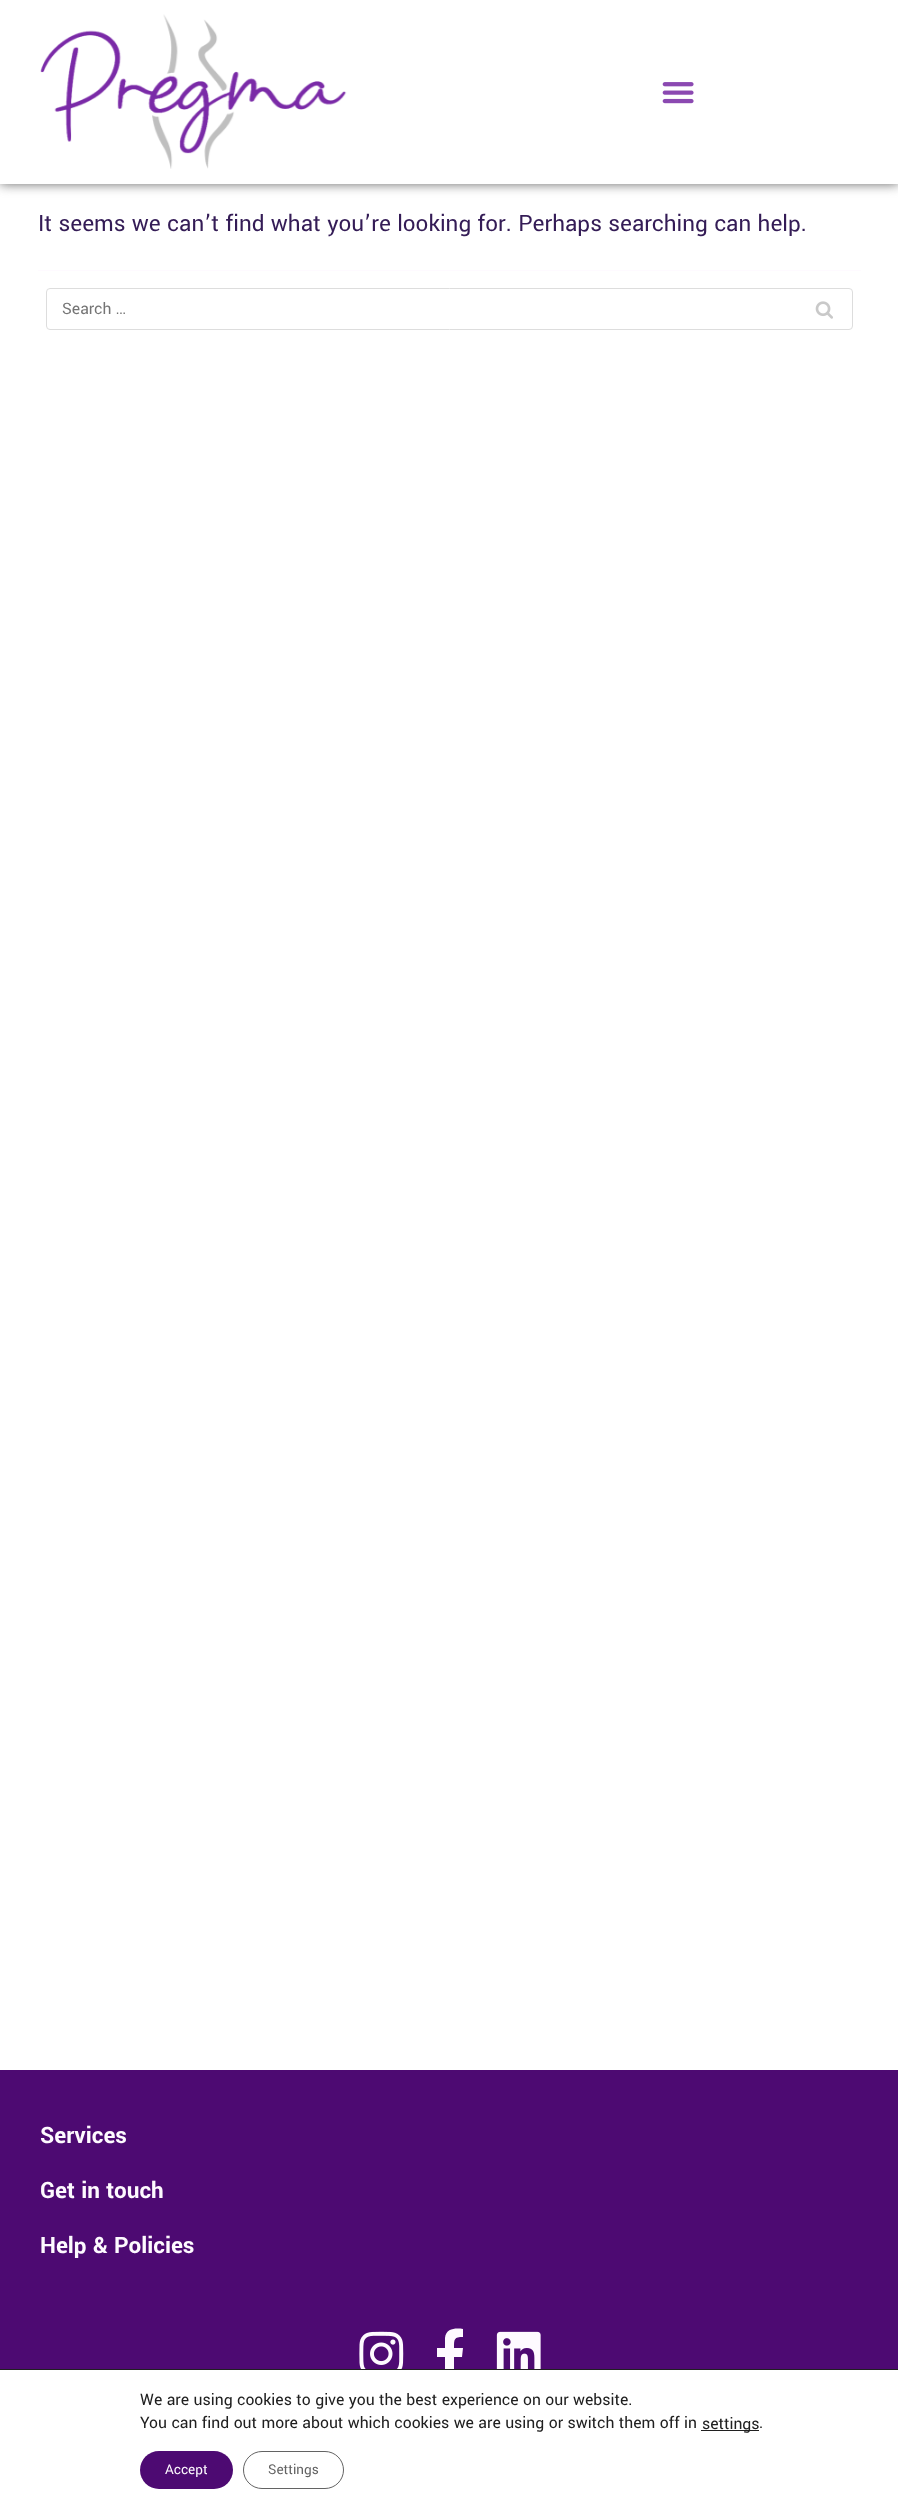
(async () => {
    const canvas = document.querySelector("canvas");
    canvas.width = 898;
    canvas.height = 2511;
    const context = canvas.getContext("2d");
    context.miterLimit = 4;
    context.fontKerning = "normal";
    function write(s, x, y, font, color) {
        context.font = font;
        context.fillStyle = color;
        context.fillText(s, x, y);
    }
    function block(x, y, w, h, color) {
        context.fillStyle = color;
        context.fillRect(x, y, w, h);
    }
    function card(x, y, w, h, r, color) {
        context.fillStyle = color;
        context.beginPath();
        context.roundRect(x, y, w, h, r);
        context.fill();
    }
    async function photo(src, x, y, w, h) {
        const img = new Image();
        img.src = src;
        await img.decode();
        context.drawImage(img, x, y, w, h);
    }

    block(0, 0, 898, 2511, "rgb(255, 255, 255)");
    context.fillStyle = "rgb(104, 104, 104)";
    context.filter = "blur(6px)";
    context.beginPath();
    context.rect(0, 0, 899, 184);
    context.fill();
    context.filter = "none";
    block(0, 0, 898, 184, "rgb(255, 255, 255)");
    await photo("media/1.png", 40, 14, 307, 155);
    await photo("media/2.png", 662, 82, 32, 22);
    write("It seems we can’t find what you’re looking for. Perhaps searching can help.", 38, 231, "25px Yantramanav", "rgb(52, 28, 86)");
    block(38, 270, 823, 1, "rgb(254, 250, 255)");
    context.beginPath();
    context.roundRect(46.5, 288.5, 806, 41, 3.5);
    context.strokeStyle = "rgb(221, 221, 221)";
    context.stroke();
    write("Search …", 62, 314, "17.5px Yantramanav", "rgb(117, 117, 117)");
    await photo("media/3.png", 815, 301, 18, 18);
    block(0, 2070, 898, 299, "rgb(77, 10, 114)");
    write("Services", 40, 2143, "bold 25px Yantramanav", "rgb(254, 250, 255)");
    write("Get in touch", 40, 2198, "bold 25px Yantramanav", "rgb(254, 250, 255)");
    write("Help & Policies", 40, 2253, "bold 25px Yantramanav", "rgb(254, 250, 255)");
    await photo("media/4.png", 359, 2331, 45, 38);
    context.beginPath();
    context.moveTo(462, 2357);
    context.lineTo(454, 2357);
    context.lineTo(454, 2379);
    context.lineTo(445, 2379);
    context.lineTo(445, 2357);
    context.lineTo(437, 2357);
    context.lineTo(437, 2348);
    context.lineTo(445, 2348);
    context.lineTo(445, 2338);
    context.bezierCurveTo(446, 2328, 456, 2328, 463, 2329);
    context.lineTo(463, 2337);
    context.bezierCurveTo(454, 2337, 454, 2339, 454, 2348);
    context.lineTo(463, 2348);
    context.closePath();
    context.fill();
    await photo("media/5.png", 496, 2331, 45, 38);
    block(445, 2370, 9, 9, "rgb(255, 255, 255)");
    block(0, 2369, 898, 1, "rgb(32, 32, 32)");
    write("We are using cookies to give you the best experience on our website.", 140, 2405, "17.5px Yantramanav", "rgb(32, 32, 32)");
    write("You can find out more about which cookies we are using or switch them off in", 140, 2428, "17.5px Yantramanav", "rgb(32, 32, 32)");
    block(701, 2430, 58, 1, "rgb(32, 32, 32)");
    write("settings", 702, 2429, "17.5px Yantramanav", "rgb(32, 32, 32)");
    write(".", 759, 2428, "17.5px Yantramanav", "rgb(32, 32, 32)");
    card(140, 2451, 93, 38, 19, "rgb(77, 10, 114)");
    write("Accept", 165, 2474, "15px Yantramanav", "rgb(254, 250, 255)");
    context.beginPath();
    context.roundRect(243.5, 2451.5, 100, 37, 18.5);
    context.strokeStyle = "rgb(99, 99, 99)";
    context.stroke();
    write("Settings", 268, 2474, "15px Yantramanav", "rgb(99, 99, 99)");
})();
